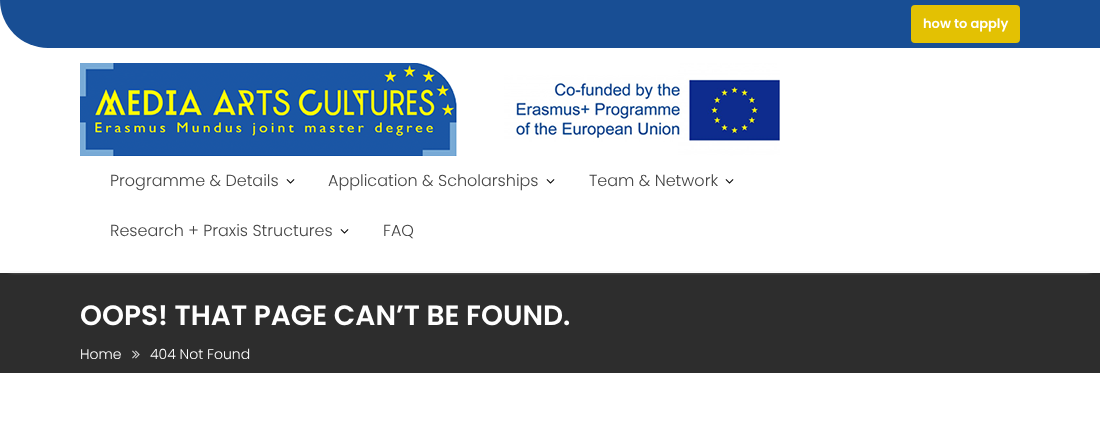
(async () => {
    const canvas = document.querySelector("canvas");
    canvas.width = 1100;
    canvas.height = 426;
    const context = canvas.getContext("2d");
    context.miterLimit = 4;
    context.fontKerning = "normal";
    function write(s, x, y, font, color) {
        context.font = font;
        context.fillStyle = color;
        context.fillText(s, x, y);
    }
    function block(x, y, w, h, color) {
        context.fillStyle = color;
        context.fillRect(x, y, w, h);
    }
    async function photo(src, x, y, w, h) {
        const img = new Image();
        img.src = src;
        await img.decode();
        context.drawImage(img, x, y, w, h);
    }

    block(0, 0, 1100, 426, "rgb(255, 255, 255)");
    context.fillStyle = "rgb(24, 78, 148)";
    context.beginPath();
    context.roundRect(0, 0, 1100, 48, [0, 0, 0, 48]);
    context.fill();
    context.fillStyle = "rgb(227, 193, 3)";
    context.beginPath();
    context.roundRect(912, 6, 107, 36, 3);
    context.fill();
    context.strokeStyle = "rgb(227, 193, 3)";
    context.lineWidth = 2;
    context.stroke();
    write("how to apply", 923, 28, "600 13px Poppins", "rgb(255, 255, 255)");
    block(0, 273, 1100, 100, "rgb(45, 45, 45)");
    context.save();
    context.beginPath();
    context.rect(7, 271, 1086, 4);
    context.clip();
    context.fillStyle = "rgba(238, 238, 238, 0.9)";
    context.filter = "blur(2px)";
    context.beginPath();
    context.rect(10, 68, 1080, 203);
    context.fill();
    context.filter = "none";
    context.restore();
    await photo("media/1.png", 80, 63, 700, 93);
    write("Programme & Details", 110, 186, "300 16px Poppins", "rgb(68, 68, 68)");
    await photo("media/2.png", 286, 179, 9, 5);
    write("Application & Scholarships", 328, 186, "300 16px Poppins", "rgb(68, 68, 68)");
    await photo("media/2.png", 546, 179, 9, 5);
    write("Team & Network", 589, 186, "300 16px Poppins", "rgb(68, 68, 68)");
    await photo("media/2.png", 725, 179, 9, 5);
    write("Research + Praxis Structures", 110, 236, "300 16px Poppins", "rgb(68, 68, 68)");
    await photo("media/2.png", 340, 229, 9, 5);
    write("FAQ", 383, 236, "300 16px Poppins", "rgb(68, 68, 68)");
    write("OOPS! THAT PAGE CAN’T BE FOUND.", 80, 325, "600 28px Poppins", "rgb(255, 255, 255)");
    write("Home", 80, 359, "300 14px Poppins", "rgb(255, 255, 255)");
    await photo("media/3.png", 132, 350, 8, 9);
    write("404 Not Found", 150, 359, "300 14px Poppins", "rgb(255, 255, 255)");
})();
